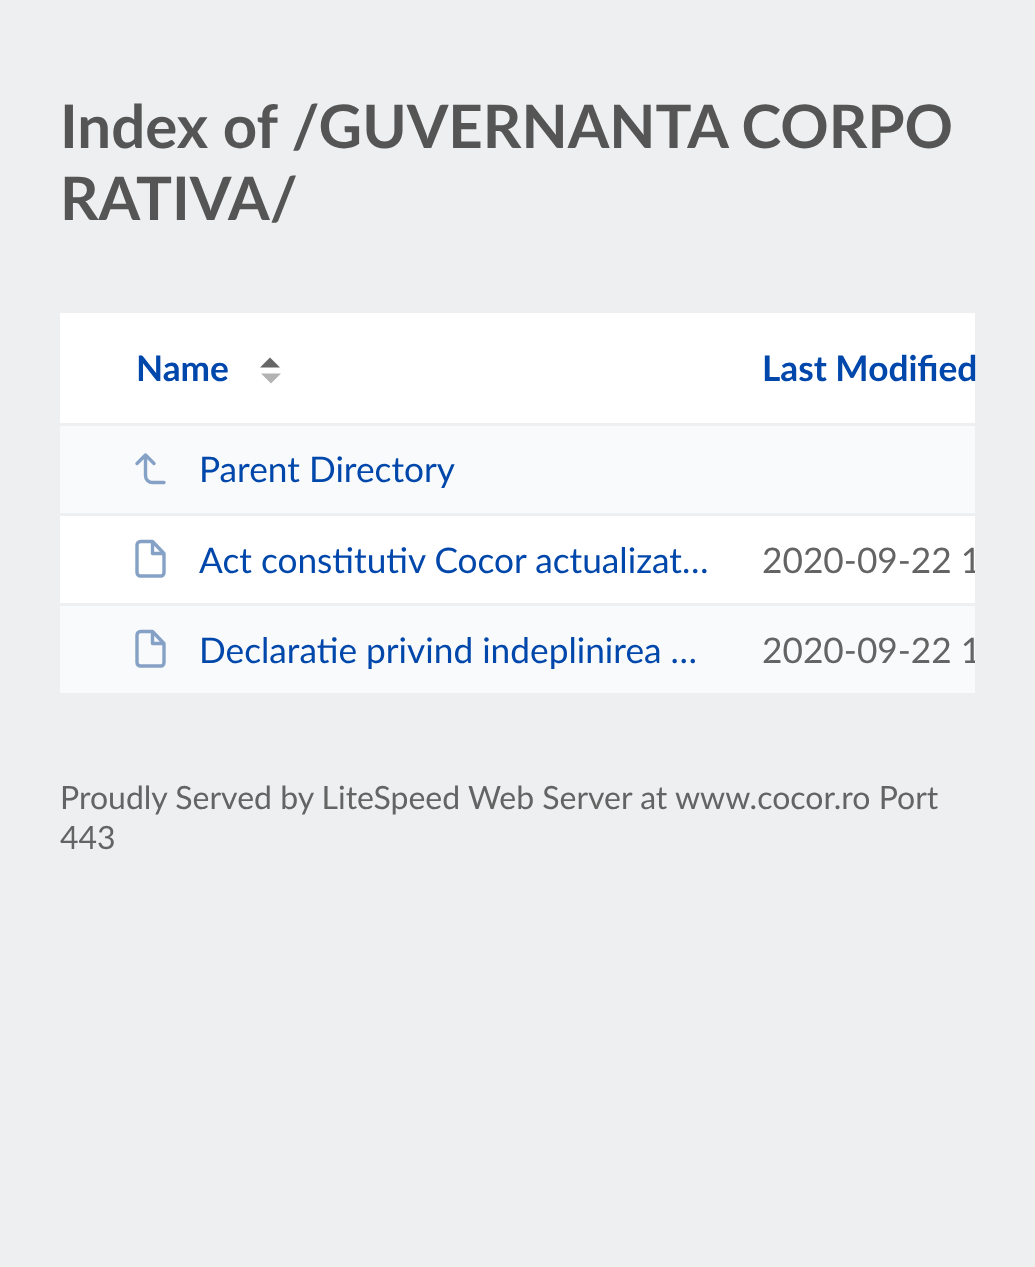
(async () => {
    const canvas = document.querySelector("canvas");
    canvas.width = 1035;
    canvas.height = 1267;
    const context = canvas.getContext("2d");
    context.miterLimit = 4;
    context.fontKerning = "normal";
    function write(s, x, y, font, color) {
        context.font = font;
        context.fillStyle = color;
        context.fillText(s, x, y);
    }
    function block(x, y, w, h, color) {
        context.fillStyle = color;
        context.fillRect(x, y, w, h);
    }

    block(0, 0, 1035, 1267, "rgb(237, 239, 240)");
    write("Index of /GUVERNANTA CORPO", 60, 148, "bold 60px Lato", "rgb(85, 85, 85)");
    write("RATIVA/", 60, 220, "bold 60px Lato", "rgb(85, 85, 85)");
    block(60, 313, 915, 290, "rgb(255, 255, 255)");
    write("Name", 136, 381, "bold 35.25px Lato", "rgb(0, 71, 171)");
    context.fillStyle = "rgb(102, 102, 102)";
    context.beginPath();
    context.moveTo(280, 367.5);
    context.lineTo(260, 367.5);
    context.lineTo(270, 357.5);
    context.closePath();
    context.fill();
    context.fillStyle = "rgb(179, 179, 179)";
    context.beginPath();
    context.moveTo(261, 373.5);
    context.lineTo(281, 373.5);
    context.lineTo(271, 383.5);
    context.closePath();
    context.fill();
    write("Last Modified", 762, 381, "bold 35.25px Lato", "rgb(0, 71, 171)");
    block(60, 426, 915, 87, "rgb(248, 250, 251)");
    block(60, 423, 915, 3, "rgb(237, 239, 240)");
    block(60, 513, 915, 3, "rgb(237, 239, 240)");
    context.beginPath();
    context.moveTo(154, 463.5);
    context.lineTo(145.5, 455);
    context.lineTo(137, 463.5);
    context.moveTo(164, 482.5);
    context.lineTo(152.5, 482.5);
    context.bezierCurveTo(148.5, 482.5, 145.5, 479.5, 145.5, 475.5);
    context.lineTo(145.5, 455);
    context.strokeStyle = "rgb(134, 161, 198)";
    context.lineWidth = 3.4;
    context.lineCap = "round";
    context.lineJoin = "round";
    context.stroke();
    write("Parent Directory", 199, 482, "35.25px Lato", "rgb(0, 71, 171)");
    context.beginPath();
    context.moveTo(152.5, 541.5);
    context.lineTo(140.5, 541.5);
    context.bezierCurveTo(138.5, 541.5, 137, 543, 137, 545);
    context.lineTo(137, 572.5);
    context.bezierCurveTo(137, 574.5, 138.5, 576, 140.5, 576);
    context.lineTo(161, 576);
    context.bezierCurveTo(162.5, 576, 164, 574.5, 164, 572.5);
    context.lineTo(164, 553.5);
    context.closePath();
    context.moveTo(152.5, 541.5);
    context.lineTo(152.5, 553.5);
    context.lineTo(164, 553.5);
    context.stroke();
    write("Act constitutiv Cocor actualizat…", 199, 573, "35.25px Lato", "rgb(0, 71, 171)");
    context.save();
    context.beginPath();
    context.rect(60, 313, 915, 382);
    context.clip();
    write("2020-09-22 1", 762, 573, "35.25px Lato", "rgb(100, 100, 100)");
    context.restore();
    block(60, 606, 915, 87, "rgb(248, 250, 251)");
    context.beginPath();
    context.moveTo(152.5, 631.5);
    context.lineTo(140.5, 631.5);
    context.bezierCurveTo(138.5, 631.5, 137, 633, 137, 635);
    context.lineTo(137, 662.5);
    context.bezierCurveTo(137, 664.5, 138.5, 666, 140.5, 666);
    context.lineTo(161, 666);
    context.bezierCurveTo(162.5, 666, 164, 664.5, 164, 662.5);
    context.lineTo(164, 643.5);
    context.closePath();
    context.moveTo(152.5, 631.5);
    context.lineTo(152.5, 643.5);
    context.lineTo(164, 643.5);
    context.stroke();
    write("Declaratie privind indeplinirea …", 199, 663, "35.25px Lato", "rgb(0, 71, 171)");
    context.save();
    context.beginPath();
    context.rect(60, 313, 915, 382);
    context.clip();
    write("2020-09-22 1", 762, 663, "35.25px Lato", "rgb(100, 100, 100)");
    context.restore();
    write("Proudly Served by LiteSpeed Web Server at www.cocor.ro Port", 60, 809, "32px Lato", "rgb(100, 100, 100)");
    write("443", 60, 849, "32px Lato", "rgb(100, 100, 100)");
})();
